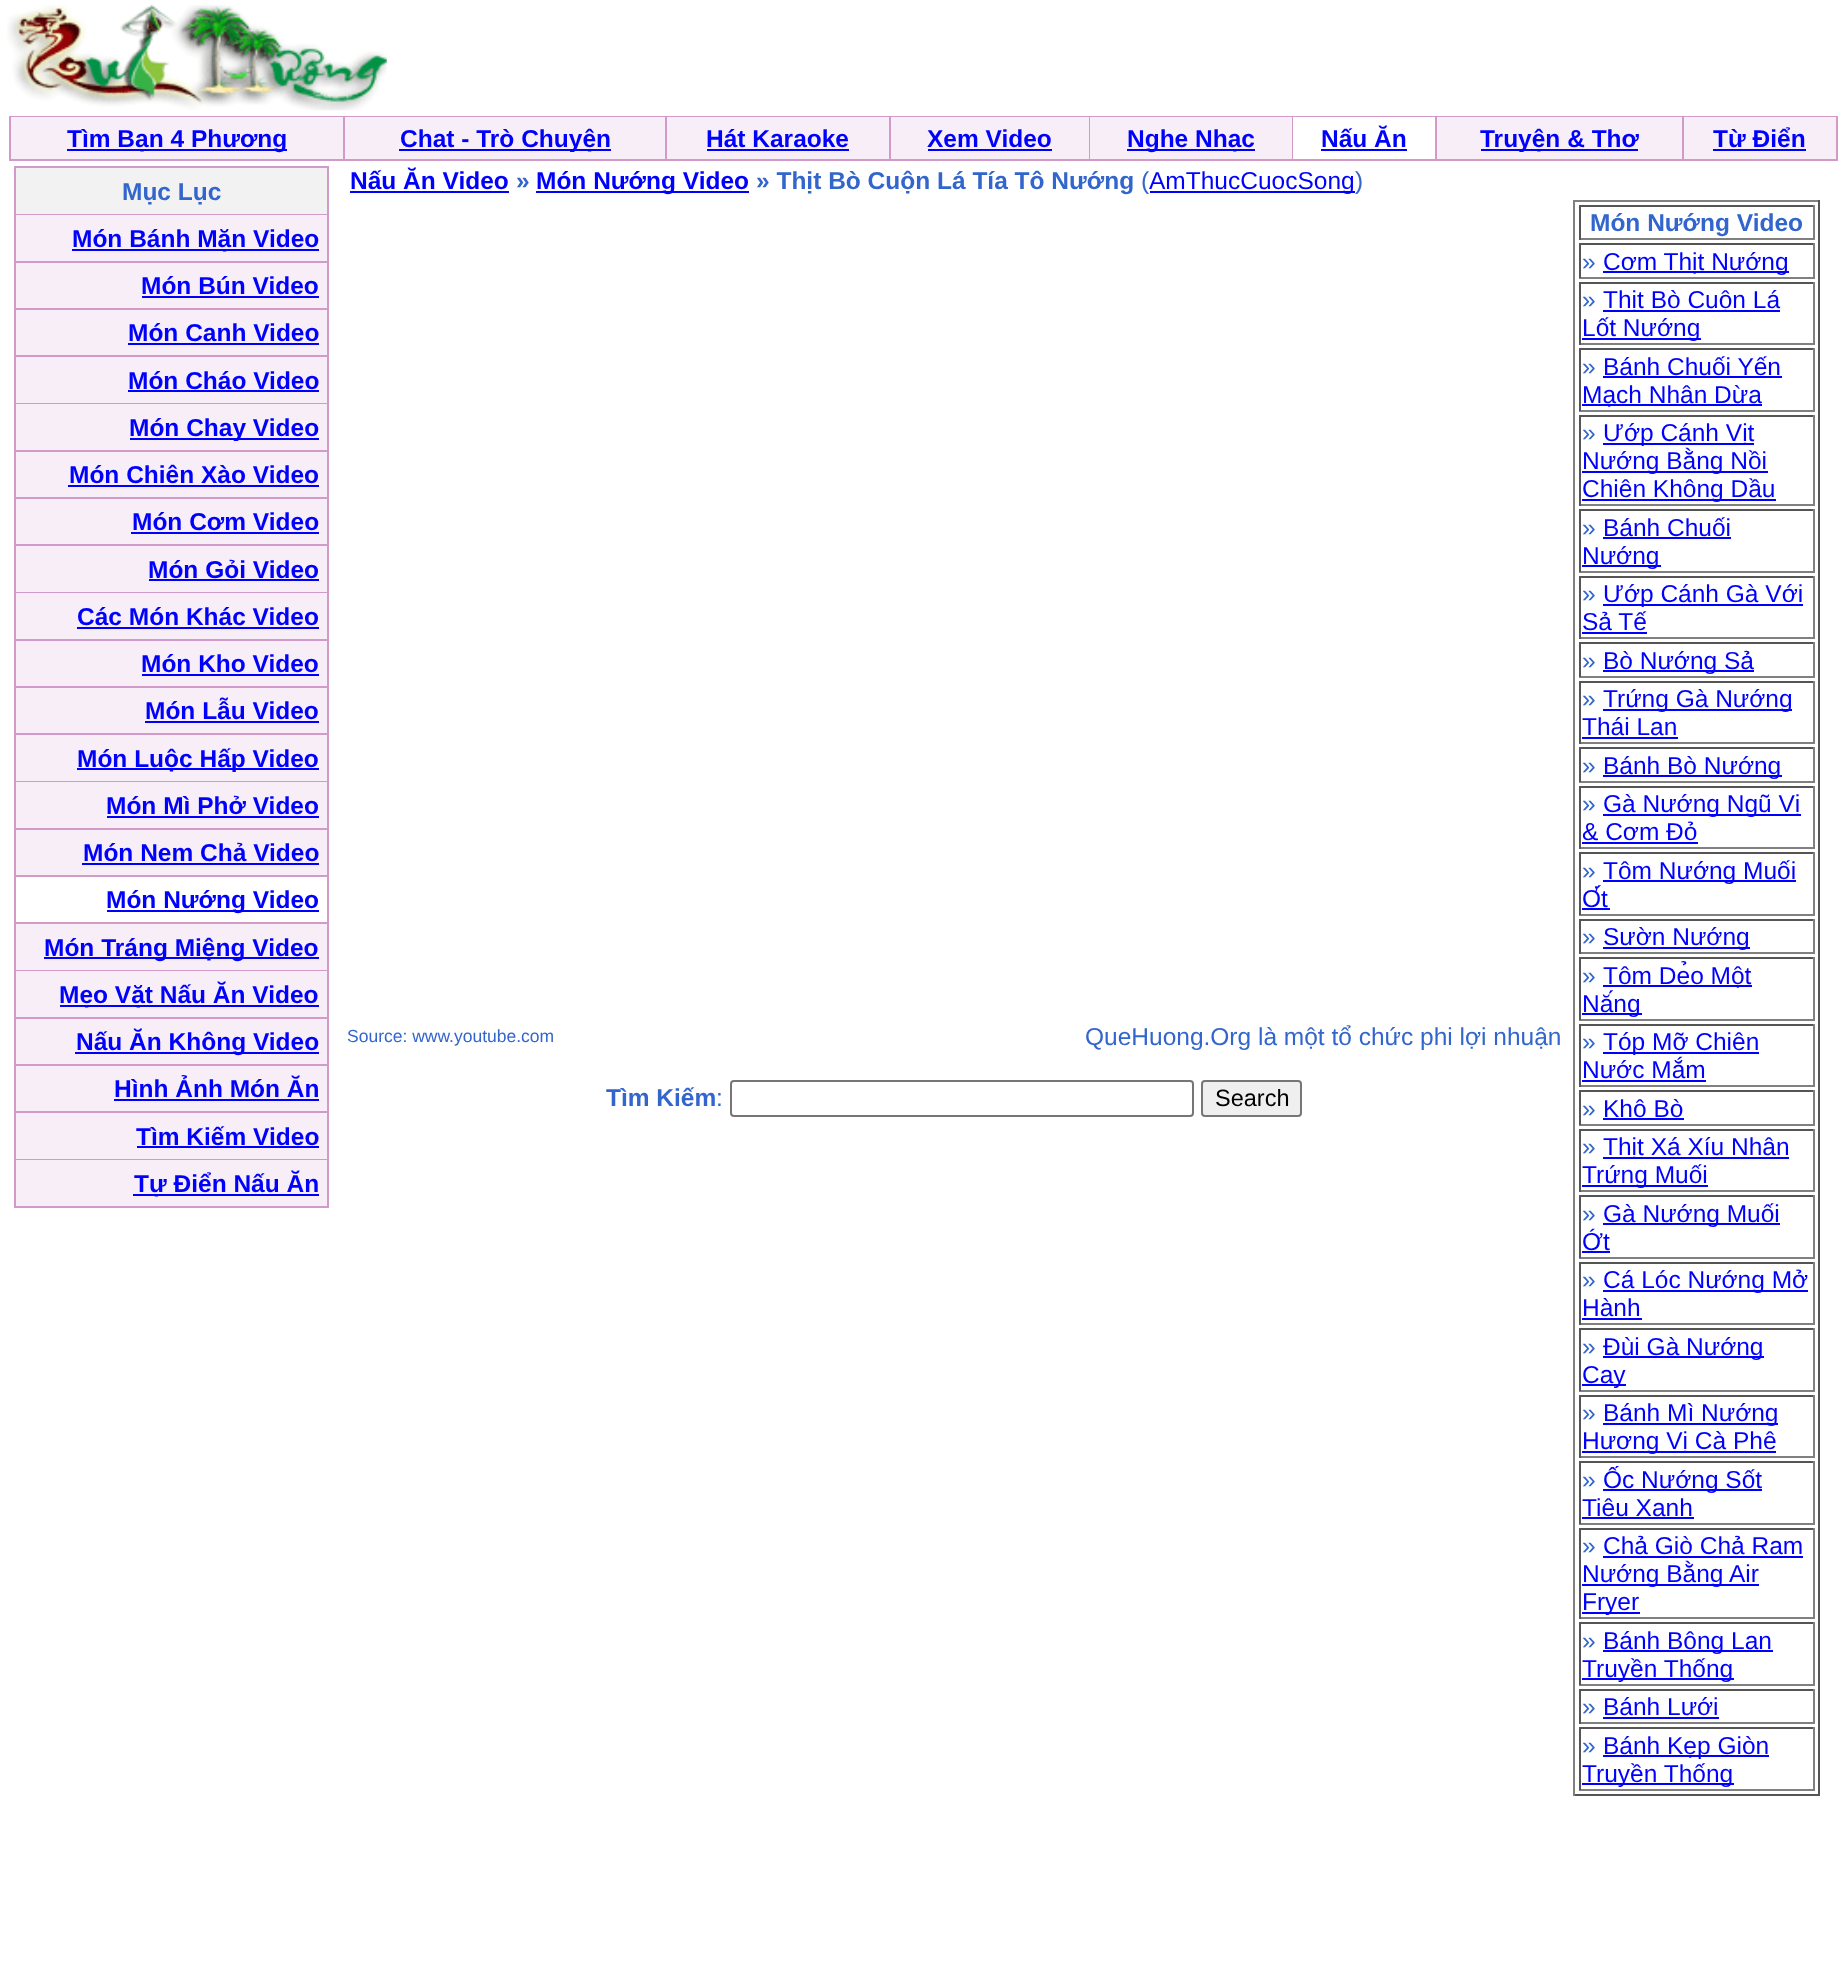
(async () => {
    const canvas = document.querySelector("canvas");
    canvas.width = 1845;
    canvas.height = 1984;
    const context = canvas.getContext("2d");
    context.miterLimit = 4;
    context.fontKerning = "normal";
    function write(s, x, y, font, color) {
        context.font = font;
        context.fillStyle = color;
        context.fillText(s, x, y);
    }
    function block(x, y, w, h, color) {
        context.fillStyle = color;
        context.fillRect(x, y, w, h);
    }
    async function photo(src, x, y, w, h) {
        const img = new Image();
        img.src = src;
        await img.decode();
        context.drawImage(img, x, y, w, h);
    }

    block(0, 0, 1845, 1984, "rgb(255, 255, 255)");
    await photo("media/1.png", 7, 5, 380, 106);
    block(9, 116, 1829, 45, "rgb(210, 154, 200)");
    block(11, 117, 332, 42, "rgb(247, 238, 247)");
    block(67, 149, 220, 2, "rgb(0, 0, 255)");
    write("Tìm Bạn 4 Phương", 67, 147, "bold 24.5px Liberation Sans", "rgb(0, 0, 255)");
    block(345, 117, 320, 42, "rgb(247, 238, 247)");
    block(399, 149, 212, 2, "rgb(0, 0, 255)");
    write("Chat - Trò Chuyện", 400, 147, "bold 24.5px Liberation Sans", "rgb(0, 0, 255)");
    block(667, 117, 222, 42, "rgb(247, 238, 247)");
    write("Hát Karaoke", 706, 147, "bold 24.5px Liberation Sans", "rgb(0, 0, 255)");
    block(707, 149, 142, 2, "rgb(0, 0, 255)");
    block(891, 117, 198, 42, "rgb(247, 238, 247)");
    write("Xem Video", 927, 147, "bold 24.5px Liberation Sans", "rgb(0, 0, 255)");
    block(928, 149, 124, 2, "rgb(0, 0, 255)");
    block(1090, 117, 202, 42, "rgb(247, 238, 247)");
    block(1127, 149, 128, 2, "rgb(0, 0, 255)");
    write("Nghe Nhạc", 1127, 147, "bold 24.5px Liberation Sans", "rgb(0, 0, 255)");
    block(1293, 117, 142, 42, "rgb(255, 255, 255)");
    write("Nấu Ăn", 1321, 147, "bold 24.5px Liberation Sans", "rgb(0, 0, 255)");
    block(1321, 149, 86, 2, "rgb(0, 0, 255)");
    block(1437, 117, 245, 42, "rgb(247, 238, 247)");
    block(1481, 149, 157, 2, "rgb(0, 0, 255)");
    write("Truyện & Thơ", 1480, 147, "bold 24.5px Liberation Sans", "rgb(0, 0, 255)");
    block(1684, 117, 152, 42, "rgb(247, 238, 247)");
    write("Từ Điển", 1713, 147, "bold 24.5px Liberation Sans", "rgb(0, 0, 255)");
    block(1713, 149, 93, 2, "rgb(0, 0, 255)");
    block(14, 166, 315, 1042, "rgb(210, 154, 200)");
    block(16, 168, 311, 46, "rgb(242, 242, 242)");
    write("Mục Lục", 122, 200, "bold 24.5px Liberation Sans", "rgb(51, 102, 204)");
    block(16, 215, 311, 46, "rgb(247, 238, 247)");
    block(72, 249, 247, 2, "rgb(0, 0, 255)");
    write("Món Bánh Mặn Video", 72, 247, "bold 24.5px Liberation Sans", "rgb(0, 0, 255)");
    block(16, 263, 311, 45, "rgb(247, 238, 247)");
    write("Món Bún Video", 141, 294, "bold 24.5px Liberation Sans", "rgb(0, 0, 255)");
    block(142, 296, 177, 2, "rgb(0, 0, 255)");
    block(16, 310, 311, 45, "rgb(247, 238, 247)");
    write("Món Canh Video", 128, 341, "bold 24.5px Liberation Sans", "rgb(0, 0, 255)");
    block(128, 343, 191, 2, "rgb(0, 0, 255)");
    block(16, 357, 311, 46, "rgb(247, 238, 247)");
    write("Món Cháo Video", 128, 389, "bold 24.5px Liberation Sans", "rgb(0, 0, 255)");
    block(128, 390, 191, 2, "rgb(0, 0, 255)");
    block(16, 404, 311, 46, "rgb(247, 238, 247)");
    block(130, 438, 189, 2, "rgb(0, 0, 255)");
    write("Món Chay Video", 129, 436, "bold 24.5px Liberation Sans", "rgb(0, 0, 255)");
    block(16, 452, 311, 45, "rgb(247, 238, 247)");
    write("Món Chiên Xào Video", 69, 483, "bold 24.5px Liberation Sans", "rgb(0, 0, 255)");
    block(68, 485, 251, 2, "rgb(0, 0, 255)");
    block(16, 499, 311, 45, "rgb(247, 238, 247)");
    write("Món Cơm Video", 132, 530, "bold 24.5px Liberation Sans", "rgb(0, 0, 255)");
    block(131, 532, 188, 2, "rgb(0, 0, 255)");
    block(16, 546, 311, 46, "rgb(247, 238, 247)");
    write("Món Gỏi Video", 148, 578, "bold 24.5px Liberation Sans", "rgb(0, 0, 255)");
    block(149, 579, 170, 2, "rgb(0, 0, 255)");
    block(16, 593, 311, 46, "rgb(247, 238, 247)");
    write("Các Món Khác Video", 77, 625, "bold 24.5px Liberation Sans", "rgb(0, 0, 255)");
    block(77, 627, 242, 2, "rgb(0, 0, 255)");
    block(16, 641, 311, 45, "rgb(247, 238, 247)");
    write("Món Kho Video", 141, 672, "bold 24.5px Liberation Sans", "rgb(0, 0, 255)");
    block(142, 674, 177, 2, "rgb(0, 0, 255)");
    block(16, 688, 311, 45, "rgb(247, 238, 247)");
    write("Món Lẫu Video", 145, 719, "bold 24.5px Liberation Sans", "rgb(0, 0, 255)");
    block(145, 721, 174, 2, "rgb(0, 0, 255)");
    block(16, 735, 311, 46, "rgb(247, 238, 247)");
    block(77, 768, 242, 2, "rgb(0, 0, 255)");
    write("Món Luộc Hấp Video", 77, 767, "bold 24.5px Liberation Sans", "rgb(0, 0, 255)");
    block(16, 782, 311, 46, "rgb(247, 238, 247)");
    write("Món Mì Phở Video", 106, 814, "bold 24.5px Liberation Sans", "rgb(0, 0, 255)");
    block(107, 816, 212, 2, "rgb(0, 0, 255)");
    block(16, 830, 311, 45, "rgb(247, 238, 247)");
    write("Món Nem Chả Video", 83, 861, "bold 24.5px Liberation Sans", "rgb(0, 0, 255)");
    block(82, 863, 237, 2, "rgb(0, 0, 255)");
    block(16, 877, 311, 45, "rgb(255, 255, 255)");
    block(107, 910, 212, 2, "rgb(0, 0, 255)");
    write("Món Nướng Video", 106, 908, "bold 24.5px Liberation Sans", "rgb(0, 0, 255)");
    block(16, 924, 311, 46, "rgb(247, 238, 247)");
    block(44, 957, 275, 2, "rgb(0, 0, 255)");
    write("Món Tráng Miệng Video", 44, 956, "bold 24.5px Liberation Sans", "rgb(0, 0, 255)");
    block(16, 971, 311, 46, "rgb(247, 238, 247)");
    block(60, 1005, 259, 2, "rgb(0, 0, 255)");
    write("Mẹo Vặt Nấu Ăn Video", 59, 1003, "bold 24.5px Liberation Sans", "rgb(0, 0, 255)");
    block(16, 1019, 311, 45, "rgb(247, 238, 247)");
    block(75, 1052, 244, 2, "rgb(0, 0, 255)");
    write("Nấu Ăn Không Video", 76, 1050, "bold 24.5px Liberation Sans", "rgb(0, 0, 255)");
    block(16, 1066, 311, 45, "rgb(247, 238, 247)");
    write("Hình Ảnh Món Ăn", 114, 1097, "bold 24.5px Liberation Sans", "rgb(0, 0, 255)");
    block(114, 1099, 205, 2, "rgb(0, 0, 255)");
    block(16, 1113, 311, 46, "rgb(247, 238, 247)");
    write("Tìm Kiếm Video", 136, 1145, "bold 24.5px Liberation Sans", "rgb(0, 0, 255)");
    block(137, 1146, 182, 2, "rgb(0, 0, 255)");
    block(16, 1160, 311, 46, "rgb(247, 238, 247)");
    block(133, 1194, 186, 2, "rgb(0, 0, 255)");
    write("Tự Điển Nấu Ăn", 134, 1192, "bold 24.5px Liberation Sans", "rgb(0, 0, 255)");
    write("Nấu Ăn Video", 350, 189, "bold 24.5px Liberation Sans", "rgb(0, 0, 255)");
    write("»", 516, 189, "bold 24.5px Liberation Sans", "rgb(51, 102, 204)");
    block(350, 191, 159, 2, "rgb(0, 0, 255)");
    block(536, 191, 213, 2, "rgb(0, 0, 255)");
    write("Món Nướng Video", 536, 189, "bold 24.5px Liberation Sans", "rgb(0, 0, 255)");
    write("» Thịt Bò Cuộn Lá Tía Tô Nướng", 756, 189, "bold 24.5px Liberation Sans", "rgb(51, 102, 204)");
    write("(", 1141, 189, "24.5px Liberation Sans", "rgb(51, 102, 204)");
    block(1150, 191, 205, 2, "rgb(0, 0, 255)");
    write("AmThucCuocSong", 1149, 189, "24.5px Liberation Sans", "rgb(0, 0, 255)");
    write(")", 1355, 189, "24.5px Liberation Sans", "rgb(51, 102, 204)");
    write("Source: www.youtube.com", 347, 1042, "17.5px Liberation Sans", "rgb(51, 102, 204)");
    write("QueHuong.Org là một tổ chức phi lợi nhuận", 1085, 1045, "24.5px Liberation Sans", "rgb(51, 102, 204)");
    write("Tìm Kiếm", 606, 1106, "bold 24.5px Liberation Sans", "rgb(51, 102, 204)");
    write(":", 716, 1106, "24.5px Liberation Sans", "rgb(51, 102, 204)");
    context.beginPath();
    context.roundRect(731, 1081, 462, 35, 3);
    context.strokeStyle = "rgb(118, 118, 118)";
    context.lineWidth = 2;
    context.stroke();
    context.fillStyle = "rgb(239, 239, 239)";
    context.beginPath();
    context.roundRect(1202, 1081, 99, 35, 3);
    context.fill();
    context.stroke();
    write("Search", 1215, 1106, "23.5px Liberation Sans", "rgb(0, 0, 0)");
    block(1573, 200, 247, 2, "rgb(128, 128, 128)");
    block(1818, 200, 2, 1596, "rgb(85, 85, 85)");
    block(1573, 1794, 247, 2, "rgb(85, 85, 85)");
    block(1573, 200, 2, 1596, "rgb(128, 128, 128)");
    block(1579, 205, 236, 2, "rgb(85, 85, 85)");
    block(1813, 205, 2, 35, "rgb(128, 128, 128)");
    block(1579, 238, 236, 2, "rgb(128, 128, 128)");
    block(1579, 205, 2, 35, "rgb(85, 85, 85)");
    write("Món Nướng Video", 1590, 231, "bold 24.5px Liberation Sans", "rgb(51, 102, 204)");
    block(1579, 243, 236, 2, "rgb(85, 85, 85)");
    block(1813, 243, 2, 35, "rgb(128, 128, 128)");
    block(1579, 277, 236, 2, "rgb(128, 128, 128)");
    block(1579, 243, 2, 35, "rgb(85, 85, 85)");
    write("»", 1582, 270, "24.5px Liberation Sans", "rgb(51, 102, 204)");
    block(1603, 271, 186, 2, "rgb(0, 0, 255)");
    write("Cơm Thịt Nướng", 1603, 270, "24.5px Liberation Sans", "rgb(0, 0, 255)");
    block(1579, 282, 236, 2, "rgb(85, 85, 85)");
    block(1813, 282, 2, 63, "rgb(128, 128, 128)");
    block(1579, 343, 236, 2, "rgb(128, 128, 128)");
    block(1579, 282, 2, 63, "rgb(85, 85, 85)");
    write("»", 1582, 308, "24.5px Liberation Sans", "rgb(51, 102, 204)");
    block(1603, 310, 177, 2, "rgb(0, 0, 255)");
    write("Thịt Bò Cuộn Lá", 1603, 308, "24.5px Liberation Sans", "rgb(0, 0, 255)");
    block(1582, 338, 119, 2, "rgb(0, 0, 255)");
    write("Lốt Nướng", 1582, 336, "24.5px Liberation Sans", "rgb(0, 0, 255)");
    block(1579, 348, 236, 2, "rgb(85, 85, 85)");
    block(1813, 348, 2, 63, "rgb(128, 128, 128)");
    block(1579, 410, 236, 2, "rgb(128, 128, 128)");
    block(1579, 348, 2, 63, "rgb(85, 85, 85)");
    write("»", 1582, 375, "24.5px Liberation Sans", "rgb(51, 102, 204)");
    write("Bánh Chuối Yến", 1603, 375, "24.5px Liberation Sans", "rgb(0, 0, 255)");
    block(1603, 376, 179, 2, "rgb(0, 0, 255)");
    block(1582, 404, 180, 2, "rgb(0, 0, 255)");
    write("Mạch Nhân Dừa", 1582, 403, "24.5px Liberation Sans", "rgb(0, 0, 255)");
    block(1579, 415, 236, 2, "rgb(85, 85, 85)");
    block(1813, 415, 2, 91, "rgb(128, 128, 128)");
    block(1579, 504, 236, 2, "rgb(128, 128, 128)");
    block(1579, 415, 2, 91, "rgb(85, 85, 85)");
    write("»", 1582, 441, "24.5px Liberation Sans", "rgb(51, 102, 204)");
    block(1603, 443, 151, 2, "rgb(0, 0, 255)");
    write("Ướp Cánh Vịt", 1603, 441, "24.5px Liberation Sans", "rgb(0, 0, 255)");
    block(1582, 471, 186, 2, "rgb(0, 0, 255)");
    write("Nướng Bằng Nồi", 1582, 469, "24.5px Liberation Sans", "rgb(0, 0, 255)");
    block(1582, 499, 194, 2, "rgb(0, 0, 255)");
    write("Chiên Không Dầu", 1582, 497, "24.5px Liberation Sans", "rgb(0, 0, 255)");
    block(1579, 509, 236, 2, "rgb(85, 85, 85)");
    block(1813, 509, 2, 63, "rgb(128, 128, 128)");
    block(1579, 571, 236, 2, "rgb(128, 128, 128)");
    block(1579, 509, 2, 63, "rgb(85, 85, 85)");
    write("»", 1582, 536, "24.5px Liberation Sans", "rgb(51, 102, 204)");
    write("Bánh Chuối", 1603, 536, "24.5px Liberation Sans", "rgb(0, 0, 255)");
    block(1603, 537, 128, 2, "rgb(0, 0, 255)");
    block(1582, 565, 79, 2, "rgb(0, 0, 255)");
    write("Nướng", 1582, 564, "24.5px Liberation Sans", "rgb(0, 0, 255)");
    block(1579, 576, 236, 2, "rgb(85, 85, 85)");
    block(1813, 576, 2, 63, "rgb(128, 128, 128)");
    block(1579, 637, 236, 2, "rgb(128, 128, 128)");
    block(1579, 576, 2, 63, "rgb(85, 85, 85)");
    write("»", 1582, 602, "24.5px Liberation Sans", "rgb(51, 102, 204)");
    block(1603, 604, 200, 2, "rgb(0, 0, 255)");
    write("Ướp Cánh Gà Với", 1603, 602, "24.5px Liberation Sans", "rgb(0, 0, 255)");
    write("Sả Tế", 1582, 630, "24.5px Liberation Sans", "rgb(0, 0, 255)");
    block(1582, 632, 65, 2, "rgb(0, 0, 255)");
    block(1579, 642, 236, 2, "rgb(85, 85, 85)");
    block(1813, 642, 2, 35, "rgb(128, 128, 128)");
    block(1579, 676, 236, 2, "rgb(128, 128, 128)");
    block(1579, 642, 2, 35, "rgb(85, 85, 85)");
    write("»", 1582, 669, "24.5px Liberation Sans", "rgb(51, 102, 204)");
    block(1603, 670, 151, 2, "rgb(0, 0, 255)");
    write("Bò Nướng Sả", 1603, 669, "24.5px Liberation Sans", "rgb(0, 0, 255)");
    block(1579, 681, 236, 2, "rgb(85, 85, 85)");
    block(1813, 681, 2, 63, "rgb(128, 128, 128)");
    block(1579, 742, 236, 2, "rgb(128, 128, 128)");
    block(1579, 681, 2, 63, "rgb(85, 85, 85)");
    write("»", 1582, 707, "24.5px Liberation Sans", "rgb(51, 102, 204)");
    block(1603, 709, 189, 2, "rgb(0, 0, 255)");
    write("Trứng Gà Nướng", 1603, 707, "24.5px Liberation Sans", "rgb(0, 0, 255)");
    write("Thái Lan", 1582, 735, "24.5px Liberation Sans", "rgb(0, 0, 255)");
    block(1582, 737, 96, 2, "rgb(0, 0, 255)");
    block(1579, 747, 236, 2, "rgb(85, 85, 85)");
    block(1813, 747, 2, 35, "rgb(128, 128, 128)");
    block(1579, 781, 236, 2, "rgb(128, 128, 128)");
    block(1579, 747, 2, 35, "rgb(85, 85, 85)");
    write("»", 1582, 774, "24.5px Liberation Sans", "rgb(51, 102, 204)");
    block(1603, 775, 179, 2, "rgb(0, 0, 255)");
    write("Bánh Bò Nướng", 1603, 774, "24.5px Liberation Sans", "rgb(0, 0, 255)");
    block(1579, 786, 236, 2, "rgb(85, 85, 85)");
    block(1813, 786, 2, 63, "rgb(128, 128, 128)");
    block(1579, 847, 236, 2, "rgb(128, 128, 128)");
    block(1579, 786, 2, 63, "rgb(85, 85, 85)");
    write("»", 1582, 812, "24.5px Liberation Sans", "rgb(51, 102, 204)");
    block(1603, 814, 198, 2, "rgb(0, 0, 255)");
    write("Gà Nướng Ngũ Vị", 1603, 812, "24.5px Liberation Sans", "rgb(0, 0, 255)");
    write("& Cơm Đỏ", 1582, 840, "24.5px Liberation Sans", "rgb(0, 0, 255)");
    block(1582, 842, 116, 2, "rgb(0, 0, 255)");
    block(1579, 852, 236, 2, "rgb(85, 85, 85)");
    block(1813, 852, 2, 63, "rgb(128, 128, 128)");
    block(1579, 914, 236, 2, "rgb(128, 128, 128)");
    block(1579, 852, 2, 63, "rgb(85, 85, 85)");
    write("»", 1582, 879, "24.5px Liberation Sans", "rgb(51, 102, 204)");
    block(1603, 880, 193, 2, "rgb(0, 0, 255)");
    write("Tôm Nướng Muối", 1603, 879, "24.5px Liberation Sans", "rgb(0, 0, 255)");
    write("Ớt", 1582, 907, "24.5px Liberation Sans", "rgb(0, 0, 255)");
    block(1582, 908, 28, 2, "rgb(0, 0, 255)");
    block(1579, 919, 236, 2, "rgb(85, 85, 85)");
    block(1813, 919, 2, 35, "rgb(128, 128, 128)");
    block(1579, 952, 236, 2, "rgb(128, 128, 128)");
    block(1579, 919, 2, 35, "rgb(85, 85, 85)");
    write("»", 1582, 945, "24.5px Liberation Sans", "rgb(51, 102, 204)");
    block(1603, 947, 147, 2, "rgb(0, 0, 255)");
    write("Sườn Nướng", 1603, 945, "24.5px Liberation Sans", "rgb(0, 0, 255)");
    block(1579, 957, 236, 2, "rgb(85, 85, 85)");
    block(1813, 957, 2, 63, "rgb(128, 128, 128)");
    block(1579, 1019, 236, 2, "rgb(128, 128, 128)");
    block(1579, 957, 2, 63, "rgb(85, 85, 85)");
    write("»", 1582, 984, "24.5px Liberation Sans", "rgb(51, 102, 204)");
    block(1603, 985, 149, 2, "rgb(0, 0, 255)");
    write("Tôm Dẻo Một", 1603, 984, "24.5px Liberation Sans", "rgb(0, 0, 255)");
    block(1582, 1013, 60, 2, "rgb(0, 0, 255)");
    write("Nắng", 1582, 1012, "24.5px Liberation Sans", "rgb(0, 0, 255)");
    block(1579, 1024, 236, 2, "rgb(85, 85, 85)");
    block(1813, 1024, 2, 63, "rgb(128, 128, 128)");
    block(1579, 1085, 236, 2, "rgb(128, 128, 128)");
    block(1579, 1024, 2, 63, "rgb(85, 85, 85)");
    write("»", 1582, 1050, "24.5px Liberation Sans", "rgb(51, 102, 204)");
    block(1603, 1052, 156, 2, "rgb(0, 0, 255)");
    write("Tóp Mỡ Chiên", 1603, 1050, "24.5px Liberation Sans", "rgb(0, 0, 255)");
    write("Nước Mắm", 1582, 1078, "24.5px Liberation Sans", "rgb(0, 0, 255)");
    block(1582, 1080, 124, 2, "rgb(0, 0, 255)");
    block(1579, 1090, 236, 2, "rgb(85, 85, 85)");
    block(1813, 1090, 2, 35, "rgb(128, 128, 128)");
    block(1579, 1124, 236, 2, "rgb(128, 128, 128)");
    block(1579, 1090, 2, 35, "rgb(85, 85, 85)");
    write("»", 1582, 1117, "24.5px Liberation Sans", "rgb(51, 102, 204)");
    write("Khô Bò", 1603, 1117, "24.5px Liberation Sans", "rgb(0, 0, 255)");
    block(1603, 1118, 81, 2, "rgb(0, 0, 255)");
    block(1579, 1129, 236, 2, "rgb(85, 85, 85)");
    block(1813, 1129, 2, 63, "rgb(128, 128, 128)");
    block(1579, 1190, 236, 2, "rgb(128, 128, 128)");
    block(1579, 1129, 2, 63, "rgb(85, 85, 85)");
    write("»", 1582, 1155, "24.5px Liberation Sans", "rgb(51, 102, 204)");
    block(1603, 1157, 186, 2, "rgb(0, 0, 255)");
    write("Thịt Xá Xíu Nhân", 1603, 1155, "24.5px Liberation Sans", "rgb(0, 0, 255)");
    block(1582, 1185, 126, 2, "rgb(0, 0, 255)");
    write("Trứng Muối", 1582, 1183, "24.5px Liberation Sans", "rgb(0, 0, 255)");
    block(1579, 1195, 236, 2, "rgb(85, 85, 85)");
    block(1813, 1195, 2, 63, "rgb(128, 128, 128)");
    block(1579, 1257, 236, 2, "rgb(128, 128, 128)");
    block(1579, 1195, 2, 63, "rgb(85, 85, 85)");
    write("»", 1582, 1222, "24.5px Liberation Sans", "rgb(51, 102, 204)");
    block(1603, 1223, 177, 2, "rgb(0, 0, 255)");
    write("Gà Nướng Muối", 1603, 1222, "24.5px Liberation Sans", "rgb(0, 0, 255)");
    write("Ớt", 1582, 1250, "24.5px Liberation Sans", "rgb(0, 0, 255)");
    block(1582, 1251, 28, 2, "rgb(0, 0, 255)");
    block(1579, 1262, 236, 2, "rgb(85, 85, 85)");
    block(1813, 1262, 2, 63, "rgb(128, 128, 128)");
    block(1579, 1323, 236, 2, "rgb(128, 128, 128)");
    block(1579, 1262, 2, 63, "rgb(85, 85, 85)");
    write("»", 1582, 1288, "24.5px Liberation Sans", "rgb(51, 102, 204)");
    block(1603, 1290, 205, 2, "rgb(0, 0, 255)");
    write("Cá Lóc Nướng Mở", 1603, 1288, "24.5px Liberation Sans", "rgb(0, 0, 255)");
    write("Hành", 1582, 1316, "24.5px Liberation Sans", "rgb(0, 0, 255)");
    block(1582, 1318, 60, 2, "rgb(0, 0, 255)");
    block(1579, 1328, 236, 2, "rgb(85, 85, 85)");
    block(1813, 1328, 2, 63, "rgb(128, 128, 128)");
    block(1579, 1390, 236, 2, "rgb(128, 128, 128)");
    block(1579, 1328, 2, 63, "rgb(85, 85, 85)");
    write("»", 1582, 1355, "24.5px Liberation Sans", "rgb(51, 102, 204)");
    block(1603, 1356, 161, 2, "rgb(0, 0, 255)");
    write("Đùi Gà Nướng", 1603, 1355, "24.5px Liberation Sans", "rgb(0, 0, 255)");
    block(1582, 1384, 44, 2, "rgb(0, 0, 255)");
    write("Cay", 1582, 1383, "24.5px Liberation Sans", "rgb(0, 0, 255)");
    block(1579, 1395, 236, 2, "rgb(85, 85, 85)");
    block(1813, 1395, 2, 63, "rgb(128, 128, 128)");
    block(1579, 1456, 236, 2, "rgb(128, 128, 128)");
    block(1579, 1395, 2, 63, "rgb(85, 85, 85)");
    write("»", 1582, 1421, "24.5px Liberation Sans", "rgb(51, 102, 204)");
    block(1603, 1423, 175, 2, "rgb(0, 0, 255)");
    write("Bánh Mì Nướng", 1603, 1421, "24.5px Liberation Sans", "rgb(0, 0, 255)");
    block(1582, 1451, 194, 2, "rgb(0, 0, 255)");
    write("Hương Vị Cà Phê", 1582, 1449, "24.5px Liberation Sans", "rgb(0, 0, 255)");
    block(1579, 1461, 236, 2, "rgb(85, 85, 85)");
    block(1813, 1461, 2, 63, "rgb(128, 128, 128)");
    block(1579, 1523, 236, 2, "rgb(128, 128, 128)");
    block(1579, 1461, 2, 63, "rgb(85, 85, 85)");
    write("»", 1582, 1488, "24.5px Liberation Sans", "rgb(51, 102, 204)");
    block(1603, 1489, 159, 2, "rgb(0, 0, 255)");
    write("Ốc Nướng Sốt", 1603, 1488, "24.5px Liberation Sans", "rgb(0, 0, 255)");
    write("Tiêu Xanh", 1582, 1516, "24.5px Liberation Sans", "rgb(0, 0, 255)");
    block(1582, 1517, 112, 2, "rgb(0, 0, 255)");
    block(1579, 1528, 236, 2, "rgb(85, 85, 85)");
    block(1813, 1528, 2, 91, "rgb(128, 128, 128)");
    block(1579, 1617, 236, 2, "rgb(128, 128, 128)");
    block(1579, 1528, 2, 91, "rgb(85, 85, 85)");
    write("»", 1582, 1554, "24.5px Liberation Sans", "rgb(51, 102, 204)");
    write("Chả Giò Chả Ram", 1603, 1554, "24.5px Liberation Sans", "rgb(0, 0, 255)");
    block(1603, 1556, 200, 2, "rgb(0, 0, 255)");
    block(1582, 1584, 177, 2, "rgb(0, 0, 255)");
    write("Nướng Bằng Air", 1582, 1582, "24.5px Liberation Sans", "rgb(0, 0, 255)");
    block(1582, 1612, 58, 2, "rgb(0, 0, 255)");
    write("Fryer", 1582, 1610, "24.5px Liberation Sans", "rgb(0, 0, 255)");
    block(1579, 1622, 236, 2, "rgb(85, 85, 85)");
    block(1813, 1622, 2, 63, "rgb(128, 128, 128)");
    block(1579, 1684, 236, 2, "rgb(128, 128, 128)");
    block(1579, 1622, 2, 63, "rgb(85, 85, 85)");
    write("»", 1582, 1649, "24.5px Liberation Sans", "rgb(51, 102, 204)");
    block(1603, 1650, 170, 2, "rgb(0, 0, 255)");
    write("Bánh Bông Lan", 1603, 1649, "24.5px Liberation Sans", "rgb(0, 0, 255)");
    block(1582, 1678, 152, 2, "rgb(0, 0, 255)");
    write("Truyền Thống", 1582, 1677, "24.5px Liberation Sans", "rgb(0, 0, 255)");
    block(1579, 1689, 236, 2, "rgb(85, 85, 85)");
    block(1813, 1689, 2, 35, "rgb(128, 128, 128)");
    block(1579, 1722, 236, 2, "rgb(128, 128, 128)");
    block(1579, 1689, 2, 35, "rgb(85, 85, 85)");
    write("»", 1582, 1715, "24.5px Liberation Sans", "rgb(51, 102, 204)");
    write("Bánh Lưới", 1603, 1715, "24.5px Liberation Sans", "rgb(0, 0, 255)");
    block(1603, 1717, 116, 2, "rgb(0, 0, 255)");
    block(1579, 1727, 236, 2, "rgb(85, 85, 85)");
    block(1813, 1727, 2, 63, "rgb(128, 128, 128)");
    block(1579, 1789, 236, 2, "rgb(128, 128, 128)");
    block(1579, 1727, 2, 63, "rgb(85, 85, 85)");
    write("»", 1582, 1754, "24.5px Liberation Sans", "rgb(51, 102, 204)");
    block(1603, 1755, 166, 2, "rgb(0, 0, 255)");
    write("Bánh Kẹp Giòn", 1603, 1754, "24.5px Liberation Sans", "rgb(0, 0, 255)");
    block(1582, 1783, 152, 2, "rgb(0, 0, 255)");
    write("Truyền Thống", 1582, 1782, "24.5px Liberation Sans", "rgb(0, 0, 255)");
})();
